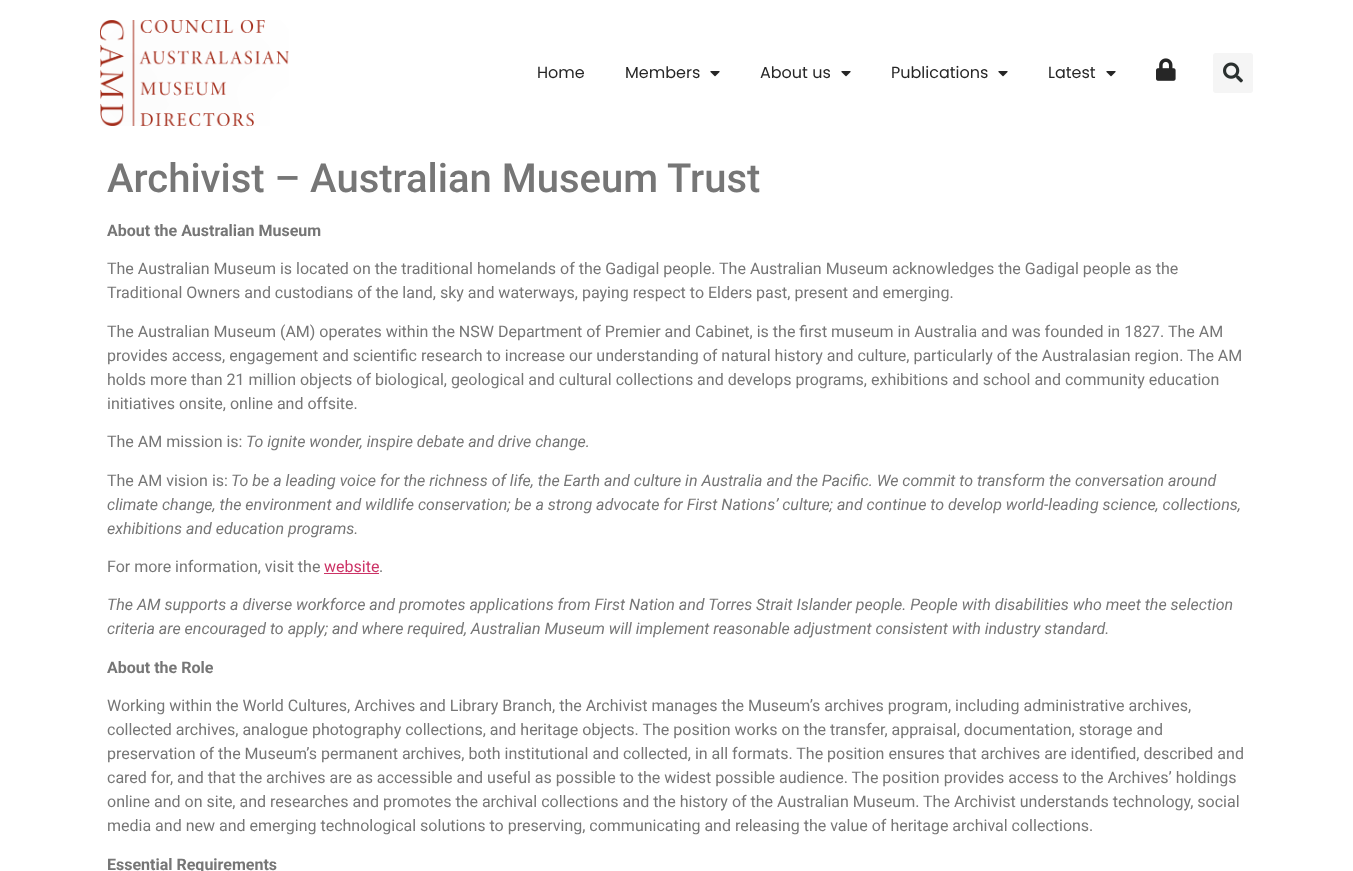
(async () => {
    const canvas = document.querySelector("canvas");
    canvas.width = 1353;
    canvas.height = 871;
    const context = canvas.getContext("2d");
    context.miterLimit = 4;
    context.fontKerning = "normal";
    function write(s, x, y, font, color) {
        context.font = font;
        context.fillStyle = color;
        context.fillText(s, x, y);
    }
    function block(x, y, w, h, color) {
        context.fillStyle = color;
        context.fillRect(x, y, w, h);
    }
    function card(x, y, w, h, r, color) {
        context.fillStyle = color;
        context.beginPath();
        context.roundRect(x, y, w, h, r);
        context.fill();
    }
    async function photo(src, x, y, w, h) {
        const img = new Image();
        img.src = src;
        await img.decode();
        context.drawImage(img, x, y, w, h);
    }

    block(0, 0, 1353, 871, "rgb(255, 255, 255)");
    await photo("media/1.png", 100, 20, 189, 106);
    write("Home", 537, 78, "16px Poppins", "rgb(38, 38, 38)");
    write("Members", 625, 78, "16px Poppins", "rgb(38, 38, 38)");
    await photo("media/2.png", 710, 71, 10, 6);
    write("About us", 760, 78, "16px Poppins", "rgb(38, 38, 38)");
    await photo("media/2.png", 841, 71, 10, 6);
    write("Publications", 891, 78, "16px Poppins", "rgb(38, 38, 38)");
    await photo("media/2.png", 998, 71, 10, 6);
    write("Latest", 1048, 78, "16px Poppins", "rgb(38, 38, 38)");
    await photo("media/2.png", 1106, 71, 10, 6);
    await photo("media/3.png", 1156, 58, 20, 23);
    card(1213, 53, 40, 40, 3, "rgb(245, 245, 245)");
    await photo("media/4.png", 1223, 62, 20, 21);
    write("Archivist – Australian Museum Trust", 107, 192, "500 40px Roboto", "rgb(118, 118, 118)");
    write("About the Australian Museum", 107, 236, "bold 16px Roboto", "rgb(118, 118, 118)");
    write("The Australian Museum is located on the traditional homelands of the Gadigal people. The Australian Museum acknowledges the Gadigal people as the", 107, 274, "16px Roboto", "rgb(118, 118, 118)");
    write("Traditional Owners and custodians of the land, sky and waterways, paying respect to Elders past, present and emerging.", 107, 298, "16px Roboto", "rgb(118, 118, 118)");
    write("The Australian Museum (AM) operates within the NSW Department of Premier and Cabinet, is the first museum in Australia and was founded in 1827. The AM", 107, 337, "16px Roboto", "rgb(118, 118, 118)");
    write("provides access, engagement and scientific research to increase our understanding of natural history and culture, particularly of the Australasian region. The AM", 107, 361, "16px Roboto", "rgb(118, 118, 118)");
    write("holds more than 21 million objects of biological, geological and cultural collections and develops programs, exhibitions and school and community education", 107, 385, "16px Roboto", "rgb(118, 118, 118)");
    write("initiatives onsite, online and offsite.", 107, 409, "16px Roboto", "rgb(118, 118, 118)");
    write("The AM mission is:", 107, 447, "16px Roboto", "rgb(118, 118, 118)");
    write("To ignite wonder, inspire debate and drive change.", 246, 447, "italic 16px Roboto", "rgb(118, 118, 118)");
    write("The AM vision is:", 107, 486, "16px Roboto", "rgb(118, 118, 118)");
    write("To be a leading voice for the richness of life, the Earth and culture in Australia and the Pacific. We commit to transform the conversation around", 231, 486, "italic 16px Roboto", "rgb(118, 118, 118)");
    write("climate change, the environment and wildlife conservation; be a strong advocate for First Nations’ culture; and continue to develop world-leading science, collections,", 107, 510, "italic 16px Roboto", "rgb(118, 118, 118)");
    write("exhibitions and education programs.", 107, 534, "italic 16px Roboto", "rgb(118, 118, 118)");
    write("For more information, visit the", 107, 572, "16px Roboto", "rgb(118, 118, 118)");
    write("website", 324, 572, "16px Roboto", "rgb(204, 51, 102)");
    block(324, 573, 55, 1, "rgb(204, 51, 102)");
    write(".", 379, 572, "16px Roboto", "rgb(118, 118, 118)");
    write("The AM supports a diverse workforce and promotes applications from First Nation and Torres Strait Islander people. People with disabilities who meet the selection", 107, 610, "italic 16px Roboto", "rgb(118, 118, 118)");
    write("criteria are encouraged to apply; and where required, Australian Museum will implement reasonable adjustment consistent with industry standard.", 107, 634, "italic 16px Roboto", "rgb(118, 118, 118)");
    write("About the Role", 107, 673, "bold 16px Roboto", "rgb(118, 118, 118)");
    write("Working within the World Cultures, Archives and Library Branch, the Archivist manages the Museum’s archives program, including administrative archives,", 107, 711, "16px Roboto", "rgb(118, 118, 118)");
    write("collected archives, analogue photography collections, and heritage objects. The position works on the transfer, appraisal, documentation, storage and", 107, 735, "16px Roboto", "rgb(118, 118, 118)");
    write("preservation of the Museum’s permanent archives, both institutional and collected, in all formats. The position ensures that archives are identified, described and", 107, 759, "16px Roboto", "rgb(118, 118, 118)");
    write("cared for, and that the archives are as accessible and useful as possible to the widest possible audience. The position provides access to the Archives’ holdings", 107, 783, "16px Roboto", "rgb(118, 118, 118)");
    write("online and on site, and researches and promotes the archival collections and the history of the Australian Museum. The Archivist understands technology, social", 107, 807, "16px Roboto", "rgb(118, 118, 118)");
    write("media and new and emerging technological solutions to preserving, communicating and releasing the value of heritage archival collections.", 107, 831, "16px Roboto", "rgb(118, 118, 118)");
    write("Essential Requirements", 107, 870, "bold 16px Roboto", "rgb(118, 118, 118)");
})();
